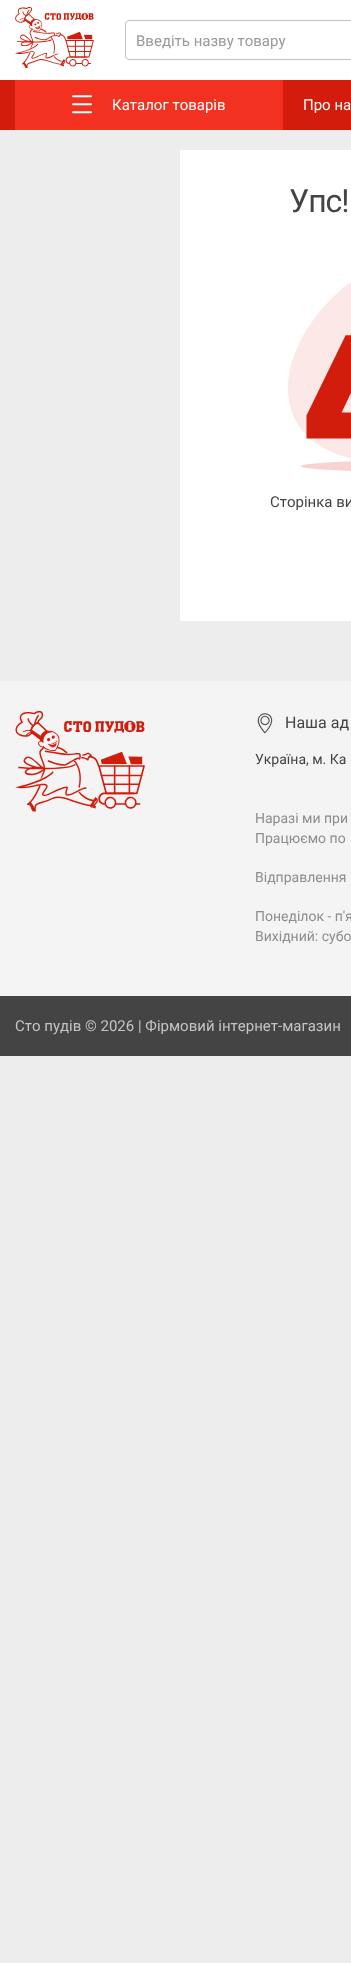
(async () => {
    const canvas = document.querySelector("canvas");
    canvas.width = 351;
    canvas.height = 1963;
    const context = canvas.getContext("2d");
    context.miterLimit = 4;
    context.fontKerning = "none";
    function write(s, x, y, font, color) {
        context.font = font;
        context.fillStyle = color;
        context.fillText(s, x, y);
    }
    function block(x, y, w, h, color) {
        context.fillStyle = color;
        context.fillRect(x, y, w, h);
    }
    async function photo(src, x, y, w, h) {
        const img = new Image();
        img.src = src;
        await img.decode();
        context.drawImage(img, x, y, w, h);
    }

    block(0, 0, 351, 1963, "rgb(237, 237, 237)");
    block(0, 0, 351, 80, "rgb(255, 255, 255)");
    await photo("media/1.png", 15, 7, 79, 61);
    context.beginPath();
    context.roundRect(125.5, 20.5, 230, 39, 3.5);
    context.strokeStyle = "rgb(196, 196, 196)";
    context.stroke();
    write("Введіть назву товару", 136, 46, "15px Roboto", "rgb(153, 153, 153)");
    block(0, 80, 351, 50, "rgb(212, 28, 12)");
    block(15, 80, 268, 50, "rgb(242, 49, 33)");
    await photo("media/2.png", 72, 95, 20, 19);
    write("Каталог товарів", 112, 110, "15px Roboto", "rgb(255, 255, 255)");
    write("Про на", 303, 110, "15px Roboto", "rgb(255, 255, 255)");
    block(180, 150, 171, 471, "rgb(255, 255, 255)");
    context.letterSpacing = "-1px";
    write("Упс!", 289, 212, "32px Roboto", "rgb(68, 68, 68)");
    await photo("media/3.png", 288, 282, 63, 189);
    context.letterSpacing = "0px";
    write("Сторінка ви", 270, 507, "15px Roboto", "rgb(68, 68, 68)");
    block(0, 681, 351, 315, "rgb(244, 244, 244)");
    await photo("media/4.png", 15, 711, 130, 101);
    write("💄", 255, 732, "20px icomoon", "rgb(68, 68, 68)");
    write("Наша ад", 285, 728, "16px Roboto", "rgb(68, 68, 68)");
    write("Україна, м. Ка", 255, 764, "14px Roboto", "rgb(68, 68, 68)");
    write("Наразі ми при", 255, 823, "14px Roboto", "rgb(141, 141, 141)");
    write("Працюємо по", 255, 843, "14px Roboto", "rgb(141, 141, 141)");
    write("Відправлення", 255, 882, "14px Roboto", "rgb(141, 141, 141)");
    write("Понеділок - п'я", 255, 921, "14px Roboto", "rgb(141, 141, 141)");
    write("Вихідний: субо", 255, 941, "14px Roboto", "rgb(141, 141, 141)");
    block(0, 996, 351, 60, "rgb(68, 68, 68)");
    write("Сто пудів © 2026 | Фірмовий інтернет-магазин", 15, 1031, "15px Roboto", "rgb(196, 196, 196)");
})();
